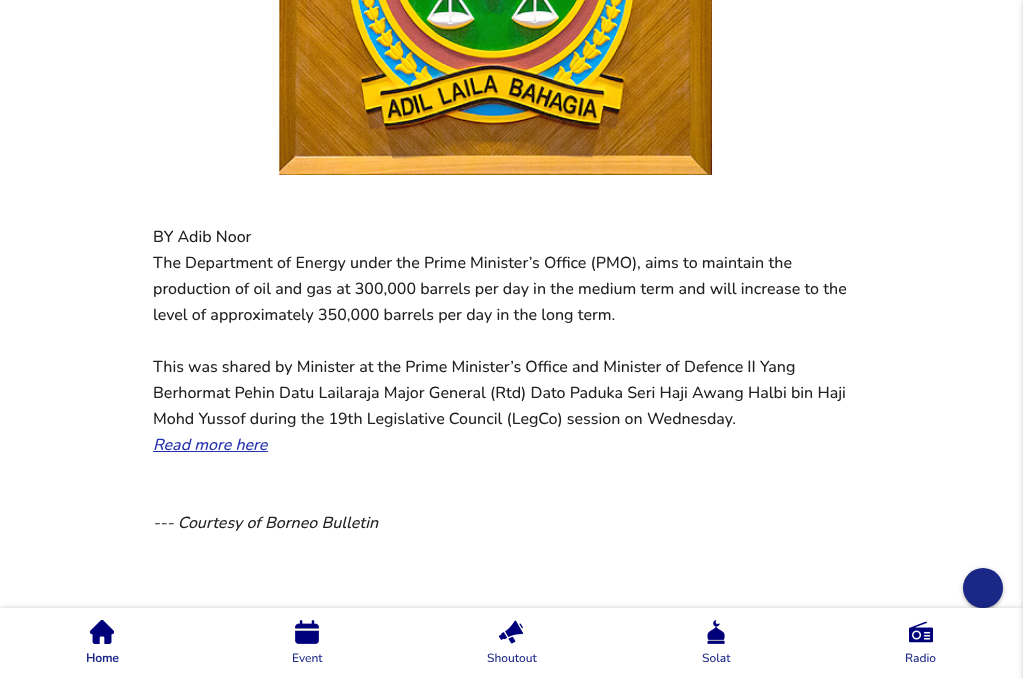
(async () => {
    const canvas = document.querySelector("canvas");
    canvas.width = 1023;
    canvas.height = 678;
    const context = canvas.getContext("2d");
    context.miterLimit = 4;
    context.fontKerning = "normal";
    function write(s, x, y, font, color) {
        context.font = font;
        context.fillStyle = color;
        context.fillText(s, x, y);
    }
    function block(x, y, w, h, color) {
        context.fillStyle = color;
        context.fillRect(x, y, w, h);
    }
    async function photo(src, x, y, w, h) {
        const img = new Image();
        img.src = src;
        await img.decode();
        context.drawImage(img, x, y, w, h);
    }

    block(0, 0, 1023, 678, "rgb(255, 255, 255)");
    await photo("media/1.png", 279, 0, 434, 175);
    write("BY Adib Noor", 153, 242, "200 16px Nunito", "rgb(33, 33, 33)");
    write("The Department of Energy under the Prime Minister’s Office (PMO), aims to maintain the", 153, 268, "200 16px Nunito", "rgb(33, 33, 33)");
    write("production of oil and gas at 300,000 barrels per day in the medium term and will increase to the", 153, 294, "200 16px Nunito", "rgb(33, 33, 33)");
    write("level of approximately 350,000 barrels per day in the long term.", 153, 320, "200 16px Nunito", "rgb(33, 33, 33)");
    write("This was shared by Minister at the Prime Minister’s Office and Minister of Defence II Yang", 153, 372, "200 16px Nunito", "rgb(33, 33, 33)");
    write("Berhormat Pehin Datu Lailaraja Major General (Rtd) Dato Paduka Seri Haji Awang Halbi bin Haji", 153, 398, "200 16px Nunito", "rgb(33, 33, 33)");
    write("Mohd Yussof during the 19th Legislative Council (LegCo) session on Wednesday.", 153, 424, "200 16px Nunito", "rgb(33, 33, 33)");
    write("Read more here", 153, 450, "italic 200 16px Nunito", "rgb(37, 48, 175)");
    block(153, 451, 115, 1, "rgb(37, 48, 175)");
    write("--- Courtesy of Borneo Bulletin", 153, 528, "italic 200 16px Nunito", "rgb(33, 33, 33)");
    context.fillStyle = "rgba(0, 0, 0, 0.2)";
    context.filter = "blur(2.5px)";
    context.beginPath();
    context.roundRect(963, 569, 40, 40, 20);
    context.fill();
    context.filter = "none";
    context.fillStyle = "rgba(0, 0, 0, 0.12)";
    context.filter = "blur(0.5px)";
    context.beginPath();
    context.roundRect(965, 573, 36, 36, 18);
    context.fill();
    context.filter = "none";
    context.fillStyle = "rgba(0, 0, 0, 0.14)";
    context.filter = "blur(1px)";
    context.beginPath();
    context.roundRect(963, 570, 40, 40, 20);
    context.fill();
    context.filter = "none";
    context.fillStyle = "rgb(26, 39, 134)";
    context.beginPath();
    context.arc(983, 588, 20, 0, Math.PI * 2);
    context.fill();
    context.fillStyle = "rgba(0, 0, 0, 0.2)";
    context.filter = "blur(2.5px)";
    context.beginPath();
    context.rect(0, 609, 1023, 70);
    context.fill();
    context.filter = "none";
    context.fillStyle = "rgba(0, 0, 0, 0.14)";
    context.filter = "blur(6px)";
    context.beginPath();
    context.rect(0, 612, 1023, 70);
    context.fill();
    context.filter = "none";
    block(0, 608, 1023, 70, "rgb(255, 255, 255)");
    context.fillStyle = "rgba(0, 0, 0, 0.2)";
    context.filter = "blur(2.5px)";
    context.beginPath();
    context.rect(1023, 1, 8, 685);
    context.fill();
    context.filter = "none";
    await photo("media/2.png", 90, 620, 24, 24);
    write("Home", 86, 662, "bold 12px Nunito", "rgb(26, 39, 134)");
    await photo("media/3.png", 295, 620, 24, 24);
    write("Event", 292, 662, "200 12px Nunito", "rgb(26, 39, 134)");
    await photo("media/4.png", 499, 620, 24, 24);
    write("Shoutout", 487, 662, "200 12px Nunito", "rgb(26, 39, 134)");
    await photo("media/5.png", 707, 620, 18, 24);
    write("Solat", 702, 662, "200 12px Nunito", "rgb(26, 39, 134)");
    await photo("media/6.png", 909, 621, 24, 22);
    write("Radio", 905, 662, "200 12px Nunito", "rgb(26, 39, 134)");
})();
